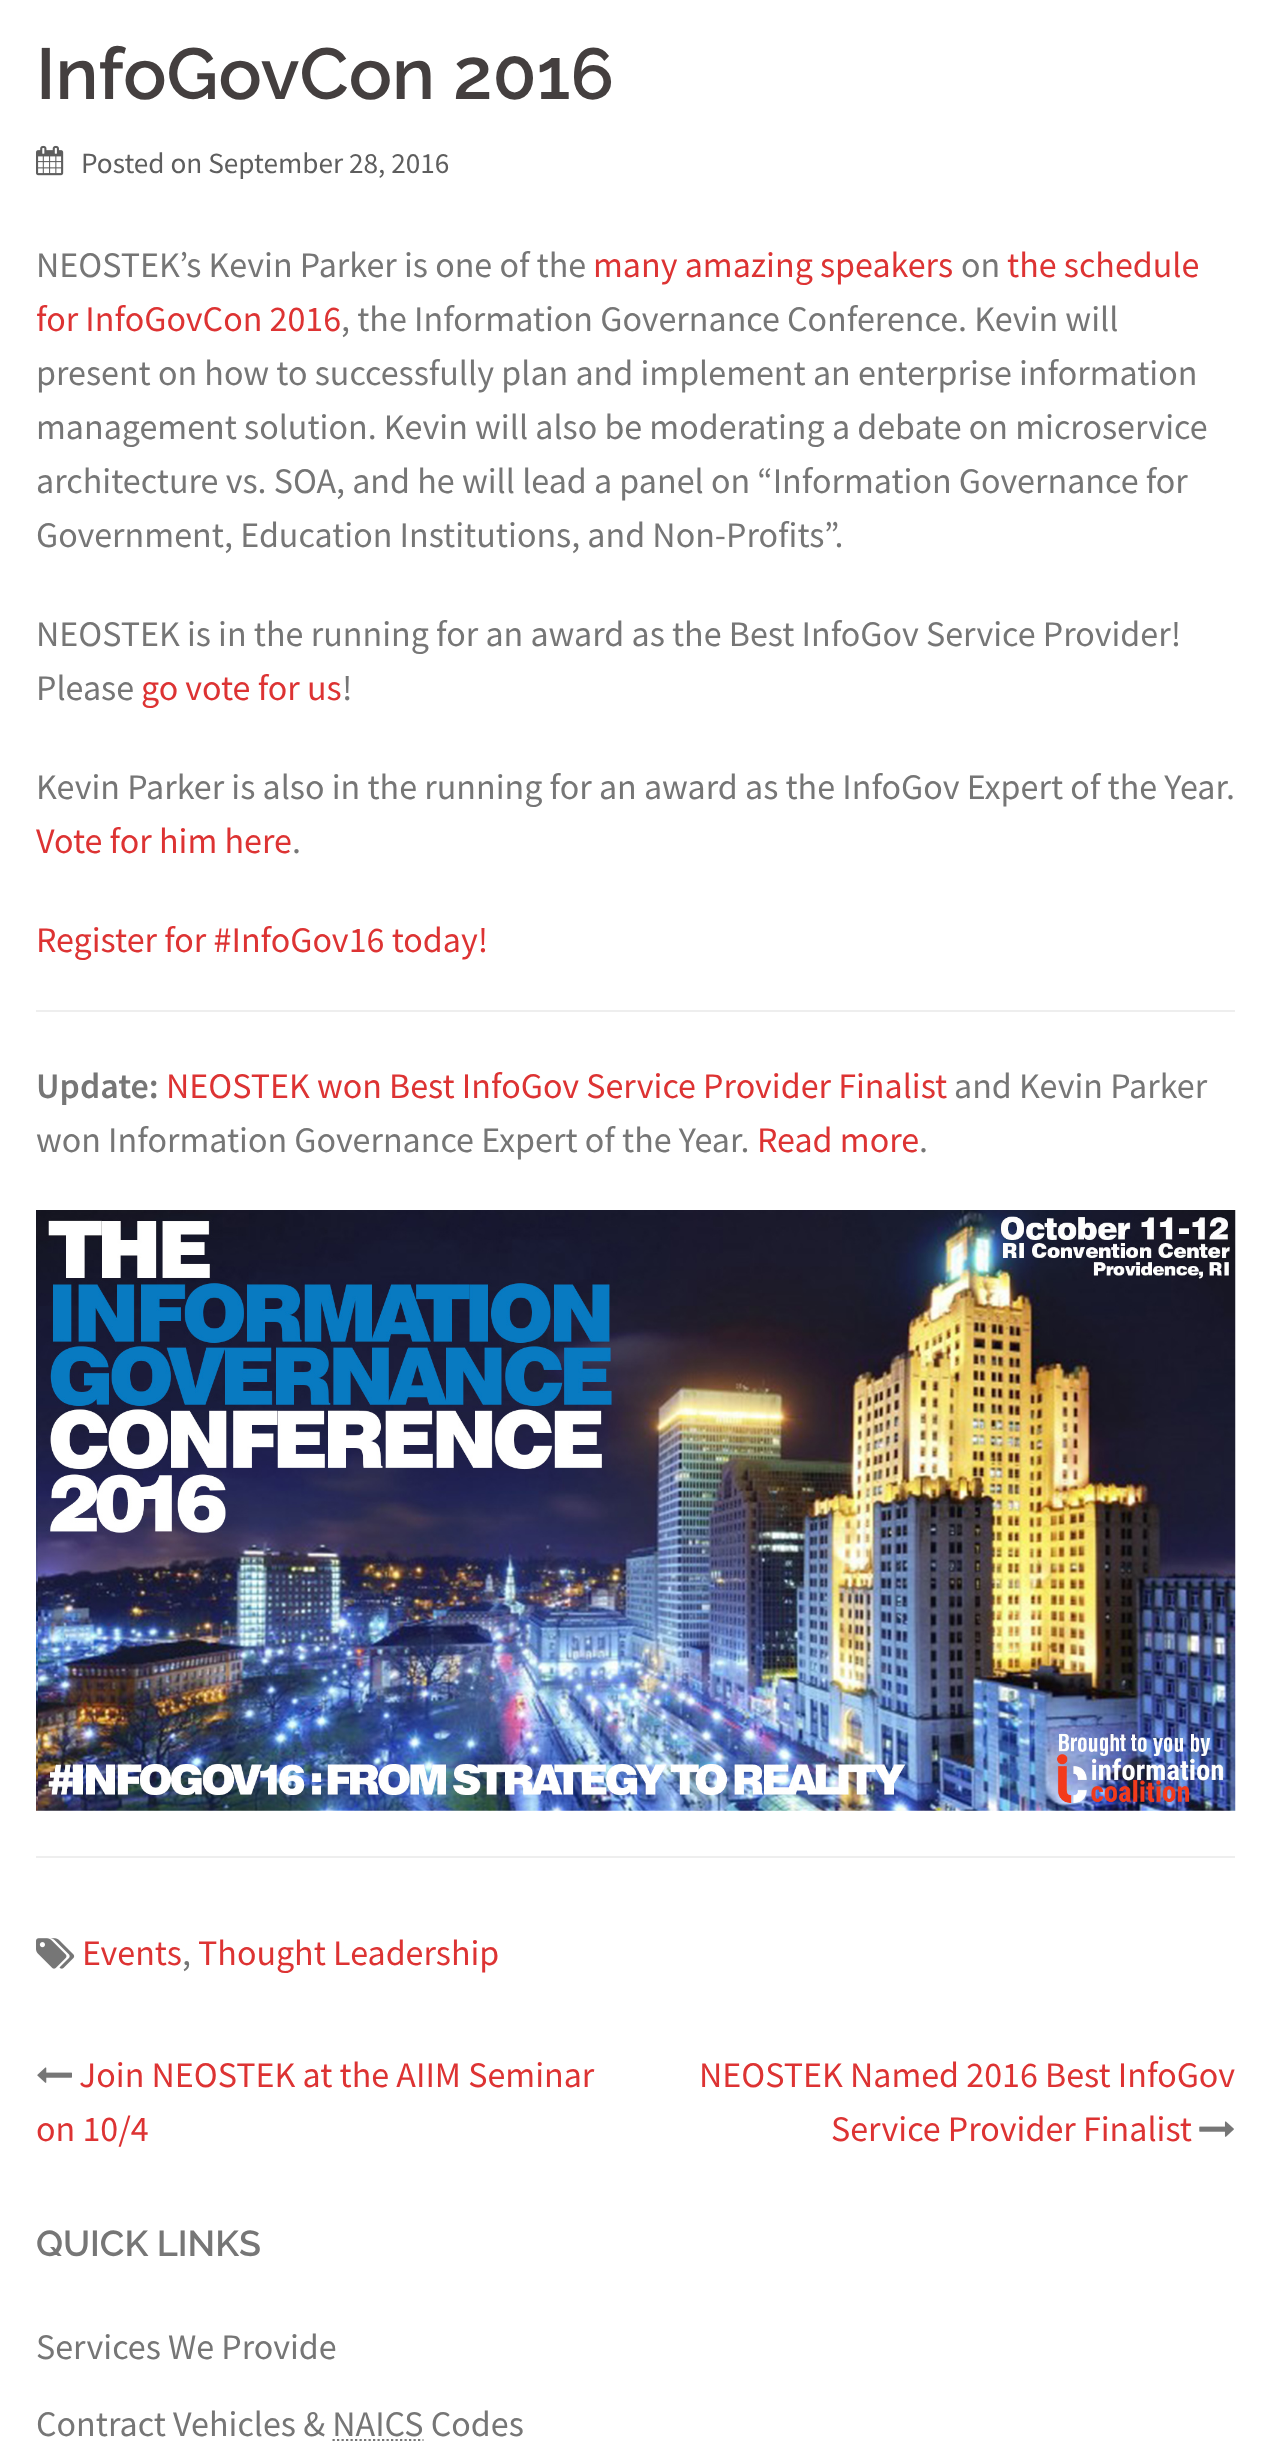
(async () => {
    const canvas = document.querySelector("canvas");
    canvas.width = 1270;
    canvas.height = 2443;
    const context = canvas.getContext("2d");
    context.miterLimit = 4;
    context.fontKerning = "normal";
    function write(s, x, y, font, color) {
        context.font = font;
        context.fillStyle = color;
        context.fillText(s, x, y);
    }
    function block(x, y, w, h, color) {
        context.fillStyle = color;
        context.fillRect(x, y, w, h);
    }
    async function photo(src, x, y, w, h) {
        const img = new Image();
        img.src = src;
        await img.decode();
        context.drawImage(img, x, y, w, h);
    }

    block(0, 0, 1270, 2443, "rgb(255, 255, 255)");
    write("InfoGovCon 2016", 36, 99, "600 72px Raleway", "rgb(68, 63, 63)");
    await photo("media/1.png", 36, 145, 28, 31);
    write("Posted on September 28, 2016", 81, 173, "29.25px Source Sans Pro", "rgb(94, 94, 94)");
    write("NEOSTEK’s Kevin Parker is one of the", 36, 277, "36px Source Sans Pro", "rgb(118, 118, 118)");
    write("many amazing speakers", 593, 277, "36px Source Sans Pro", "rgb(221, 51, 51)");
    write("on", 961, 277, "36px Source Sans Pro", "rgb(118, 118, 118)");
    write("the schedule", 1007, 277, "36px Source Sans Pro", "rgb(221, 51, 51)");
    write("for InfoGovCon 2016", 36, 331, "36px Source Sans Pro", "rgb(221, 51, 51)");
    write(", the Information Governance Conference. Kevin will", 341, 331, "36px Source Sans Pro", "rgb(118, 118, 118)");
    write("present on how to successfully plan and implement an enterprise information", 36, 385, "36px Source Sans Pro", "rgb(118, 118, 118)");
    write("management solution. Kevin will also be moderating a debate on microservice", 36, 439, "36px Source Sans Pro", "rgb(118, 118, 118)");
    write("architecture vs. SOA, and he will lead a panel on “Information Governance for", 36, 493, "36px Source Sans Pro", "rgb(118, 118, 118)");
    write("Government, Education Institutions, and Non-Profits”.", 36, 547, "36px Source Sans Pro", "rgb(118, 118, 118)");
    write("NEOSTEK is in the running for an award as the Best InfoGov Service Provider!", 36, 646, "36px Source Sans Pro", "rgb(118, 118, 118)");
    write("Please", 36, 700, "36px Source Sans Pro", "rgb(118, 118, 118)");
    write("go vote for us", 141, 700, "36px Source Sans Pro", "rgb(221, 51, 51)");
    write("!", 342, 700, "36px Source Sans Pro", "rgb(118, 118, 118)");
    write("Kevin Parker is also in the running for an award as the InfoGov Expert of the Year.", 36, 799, "36px Source Sans Pro", "rgb(118, 118, 118)");
    write("Vote for him here", 36, 853, "36px Source Sans Pro", "rgb(221, 51, 51)");
    write(".", 292, 853, "36px Source Sans Pro", "rgb(118, 118, 118)");
    write("Register for #InfoGov16 today!", 36, 952, "36px Source Sans Pro", "rgb(221, 51, 51)");
    block(36, 1010, 1199, 2, "rgb(238, 238, 238)");
    write("Update:", 36, 1098, "600 36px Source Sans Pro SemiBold", "rgb(118, 118, 118)");
    write("NEOSTEK won Best InfoGov Service Provider Finalist", 166, 1098, "36px Source Sans Pro", "rgb(221, 51, 51)");
    write("and Kevin Parker", 954, 1098, "36px Source Sans Pro", "rgb(118, 118, 118)");
    write("won Information Governance Expert of the Year.", 36, 1152, "36px Source Sans Pro", "rgb(118, 118, 118)");
    write("Read more", 757, 1152, "36px Source Sans Pro", "rgb(221, 51, 51)");
    write(".", 919, 1152, "36px Source Sans Pro", "rgb(118, 118, 118)");
    await photo("media/2.png", 36, 1210, 1200, 601);
    block(36, 1856, 1199, 2, "rgb(238, 238, 238)");
    await photo("media/3.png", 36, 1938, 39, 31);
    write("Events", 82, 1965, "36px Source Sans Pro", "rgb(221, 51, 51)");
    write(",", 182, 1965, "36px Source Sans Pro", "rgb(118, 118, 118)");
    write("Thought Leadership", 198, 1965, "36px Source Sans Pro", "rgb(221, 51, 51)");
    await photo("media/4.png", 37, 2067, 35, 16);
    write("Join NEOSTEK at the AIIM Seminar", 79, 2087, "36px Source Sans Pro", "rgb(221, 51, 51)");
    write("on 10/4", 36, 2141, "36px Source Sans Pro", "rgb(221, 51, 51)");
    write("NEOSTEK Named 2016 Best InfoGov", 699, 2087, "36px Source Sans Pro", "rgb(221, 51, 51)");
    write("Service Provider Finalist", 831, 2141, "36px Source Sans Pro", "rgb(221, 51, 51)");
    await photo("media/5.png", 1199, 2121, 35, 16);
    write("QUICK LINKS", 36, 2256, "600 36px Raleway", "rgb(118, 118, 118)");
    write("Services We Provide", 36, 2359, "36px Source Sans Pro", "rgb(118, 118, 118)");
    write("Contract Vehicles & NAICS Codes", 36, 2436, "36px Source Sans Pro", "rgb(118, 118, 118)");
    context.beginPath();
    context.moveTo(332.5, 2440);
    context.lineTo(423.5, 2440);
    context.strokeStyle = "rgb(118, 118, 118)";
    context.lineWidth = 2.2;
    context.setLineDash([2.25, 2.25]);
    context.stroke();
})();
